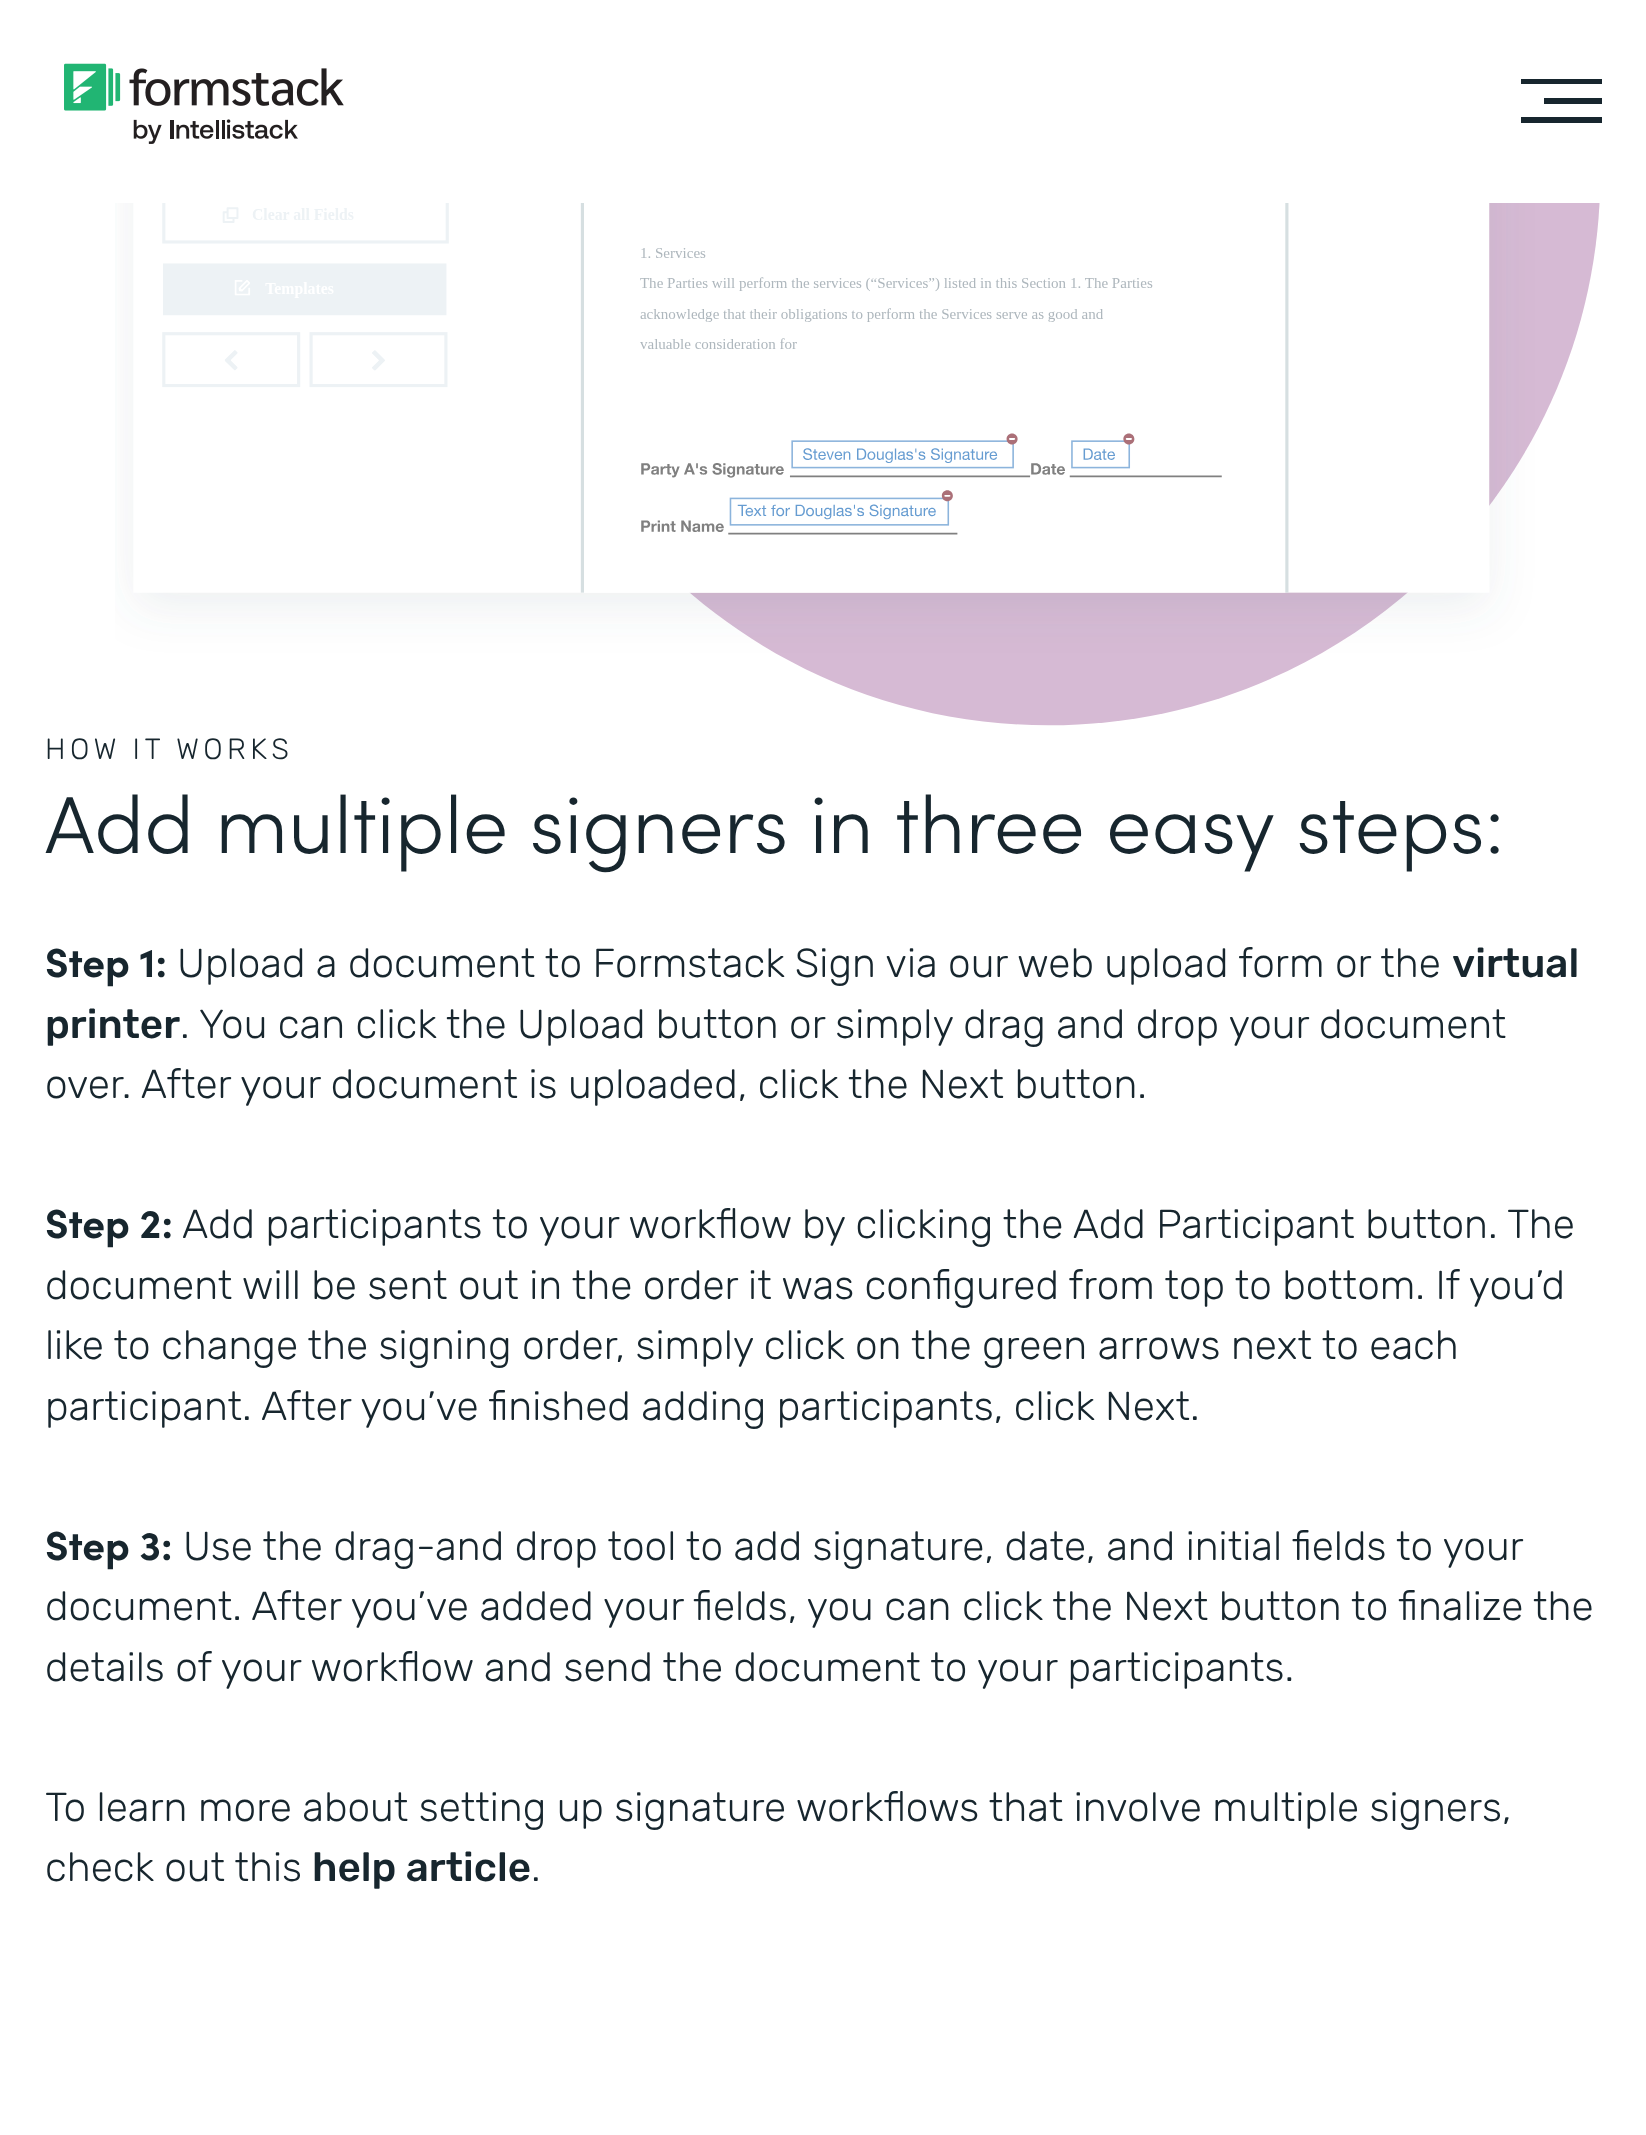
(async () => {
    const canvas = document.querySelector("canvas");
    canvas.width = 1646;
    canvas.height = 2135;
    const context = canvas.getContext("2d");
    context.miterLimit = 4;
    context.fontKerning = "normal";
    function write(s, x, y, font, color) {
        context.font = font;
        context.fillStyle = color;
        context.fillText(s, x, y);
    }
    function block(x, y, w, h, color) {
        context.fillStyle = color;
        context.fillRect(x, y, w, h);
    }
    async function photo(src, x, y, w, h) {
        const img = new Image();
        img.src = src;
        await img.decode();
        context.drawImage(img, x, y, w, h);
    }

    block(0, 0, 1646, 2135, "rgb(255, 255, 255)");
    await photo("media/1.png", 64, 63, 280, 81);
    context.fillStyle = "rgb(23, 38, 46)";
    context.beginPath();
    context.moveTo(1602, 117);
    context.lineTo(1602, 123);
    context.lineTo(1521, 123);
    context.lineTo(1521, 117);
    context.closePath();
    context.moveTo(1602, 98);
    context.lineTo(1602, 104);
    context.lineTo(1544, 104);
    context.lineTo(1544, 98);
    context.closePath();
    context.moveTo(1602, 79);
    context.lineTo(1602, 84);
    context.lineTo(1521, 84);
    context.lineTo(1521, 79);
    context.closePath();
    context.fill("evenodd");
    await photo("media/2.png", 115, 203, 1485, 523);
    context.letterSpacing = "4.5px";
    write("HOW IT WORKS", 45, 759, "300 29.25px Rubik", "rgb(23, 38, 46)");
    context.letterSpacing = "0px";
    write("Add multiple signers in three easy steps:", 45, 853, "300 81px Sofia", "rgb(23, 38, 46)");
    write("Step 1:", 45, 977, "bold 40.5px Sofia", "rgb(23, 38, 46)");
    write("Upload a document to Formstack Sign via our web upload form or the", 177, 977, "300 40.5px Rubik", "rgb(23, 38, 46)");
    write("virtual", 1452, 977, "500 40.5px Rubik", "rgb(23, 38, 46)");
    write("printer", 45, 1038, "500 40.5px Rubik", "rgb(23, 38, 46)");
    write(". You can click the Upload button or simply drag and drop your document", 180, 1038, "300 40.5px Rubik", "rgb(23, 38, 46)");
    write("over. After your document is uploaded, click the Next button.", 45, 1098, "300 40.5px Rubik", "rgb(23, 38, 46)");
    write("Step 2:", 45, 1238, "bold 40.5px Sofia", "rgb(23, 38, 46)");
    write("Add participants to your workflow by clicking the Add Participant button. The", 182, 1238, "300 40.5px Rubik", "rgb(23, 38, 46)");
    write("document will be sent out in the order it was configured from top to bottom. If you’d", 45, 1299, "300 40.5px Rubik", "rgb(23, 38, 46)");
    write("like to change the signing order, simply click on the green arrows next to each", 45, 1359, "300 40.5px Rubik", "rgb(23, 38, 46)");
    write("participant. After you’ve finished adding participants, click Next.", 45, 1420, "300 40.5px Rubik", "rgb(23, 38, 46)");
    write("Step 3:", 45, 1560, "bold 40.5px Sofia", "rgb(23, 38, 46)");
    write("Use the drag-and drop tool to add signature, date, and initial fields to your", 183, 1560, "300 40.5px Rubik", "rgb(23, 38, 46)");
    write("document. After you’ve added your fields, you can click the Next button to finalize the", 45, 1620, "300 40.5px Rubik", "rgb(23, 38, 46)");
    write("details of your workflow and send the document to your participants.", 45, 1681, "300 40.5px Rubik", "rgb(23, 38, 46)");
    write("To learn more about setting up signature workflows that involve multiple signers,", 45, 1821, "300 40.5px Rubik", "rgb(23, 38, 46)");
    write("check out this", 45, 1881, "300 40.5px Rubik", "rgb(23, 38, 46)");
    write("help article", 312, 1881, "500 40.5px Rubik", "rgb(23, 38, 46)");
    write(".", 531, 1881, "300 40.5px Rubik", "rgb(23, 38, 46)");
})();
